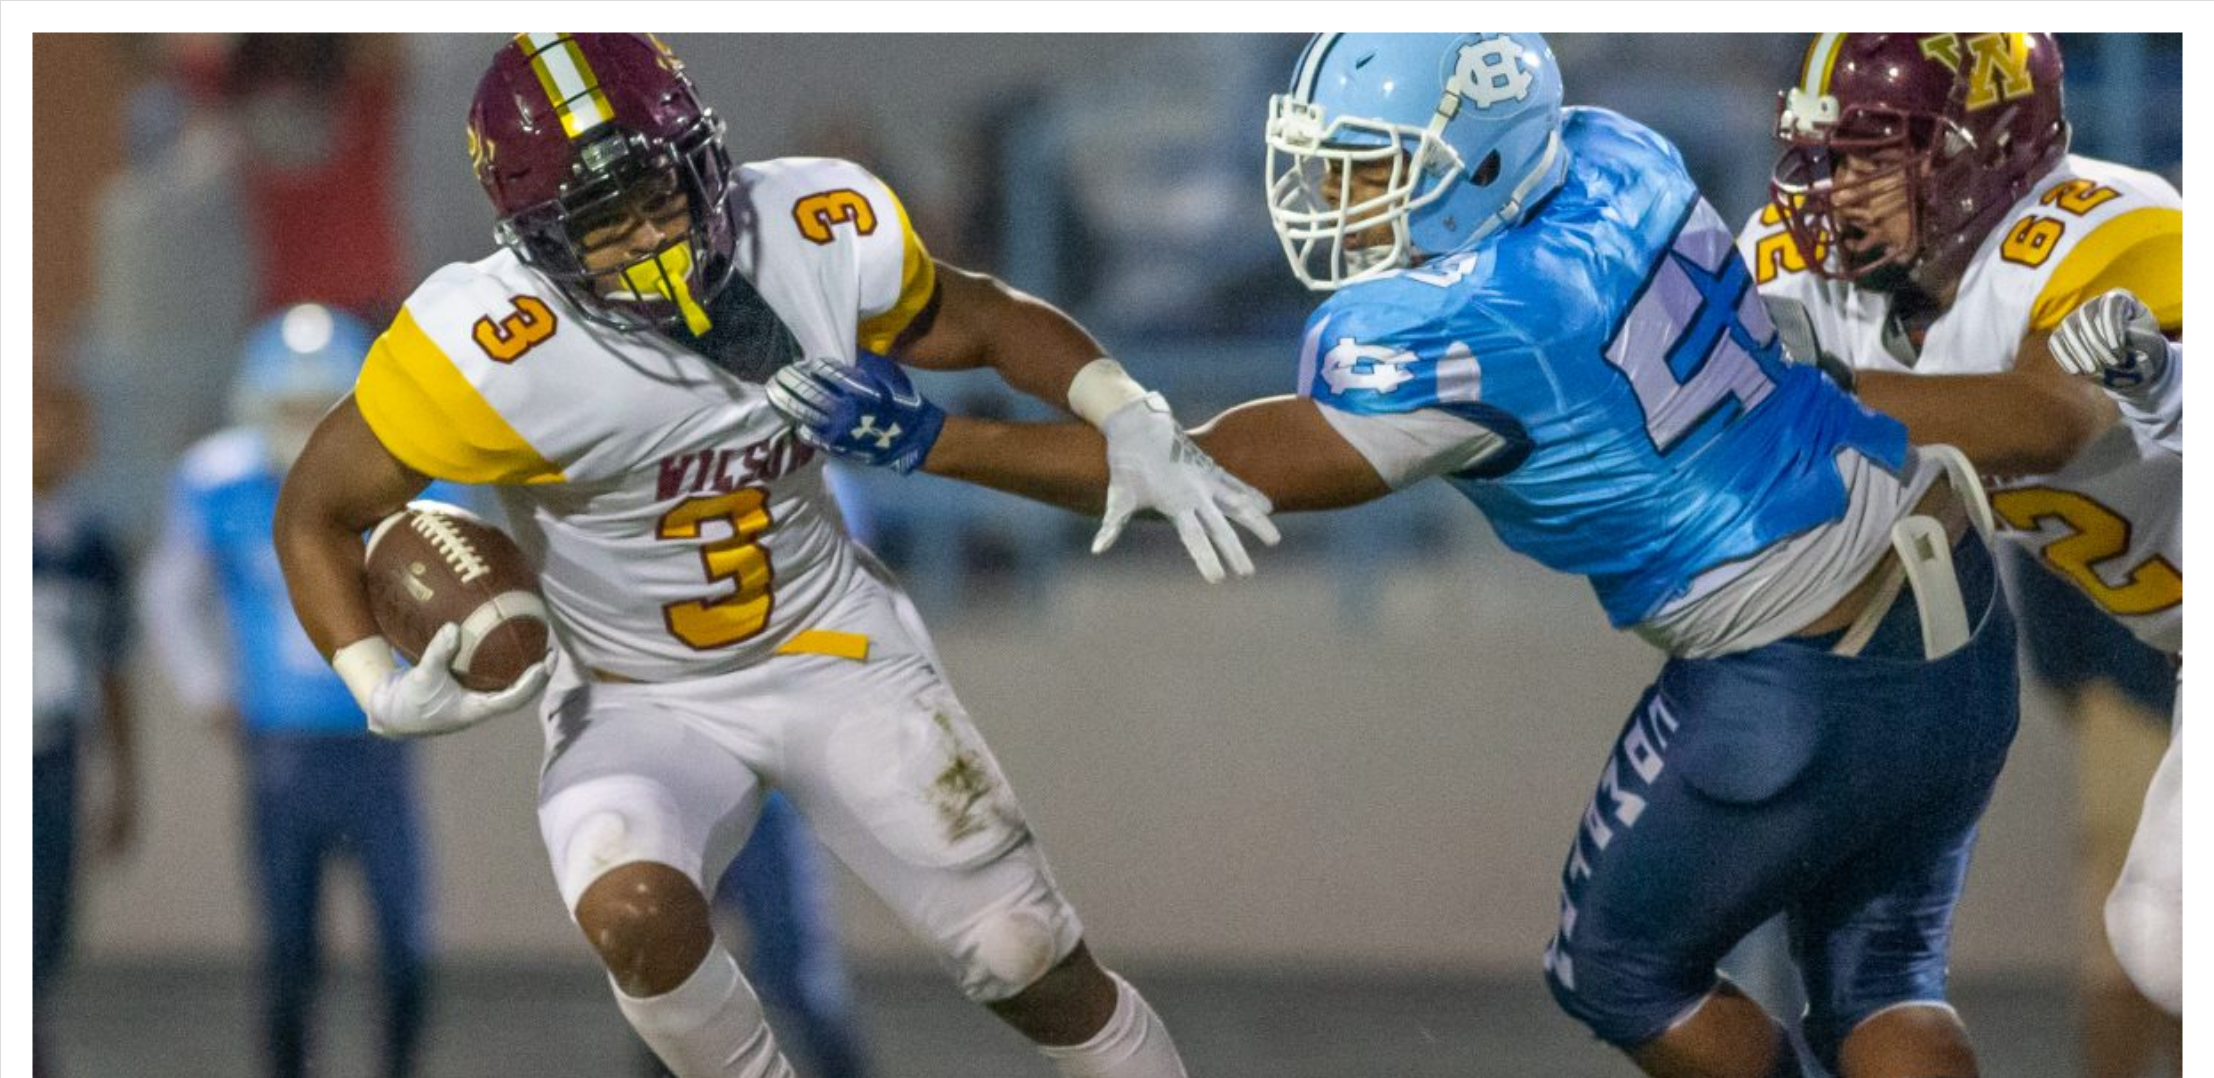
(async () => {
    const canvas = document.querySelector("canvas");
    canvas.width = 2214;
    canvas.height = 1078;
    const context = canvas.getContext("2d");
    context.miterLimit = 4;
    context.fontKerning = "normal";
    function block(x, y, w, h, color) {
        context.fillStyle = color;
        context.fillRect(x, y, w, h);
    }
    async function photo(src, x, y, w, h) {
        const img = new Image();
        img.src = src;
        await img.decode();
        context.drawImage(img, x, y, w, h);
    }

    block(0, 0, 2214, 1078, "rgb(255, 255, 255)");
    context.strokeStyle = "rgb(220, 220, 222)";
    context.strokeRect(0.5, 0.5, 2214, 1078);
    await photo("media/1.png", 32, 32, 2151, 1046);
})();
